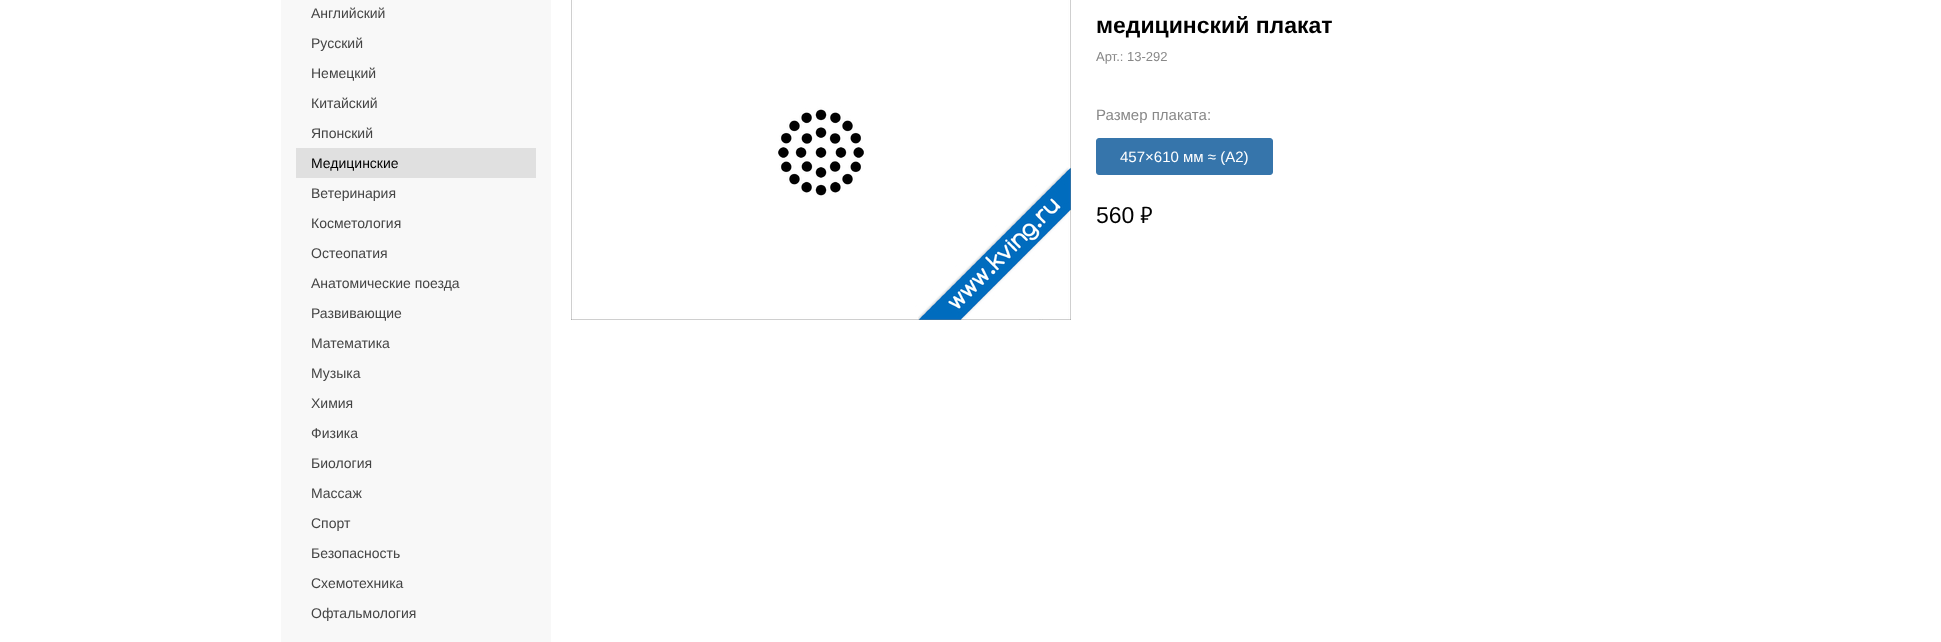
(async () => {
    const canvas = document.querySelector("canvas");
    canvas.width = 1941;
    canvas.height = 642;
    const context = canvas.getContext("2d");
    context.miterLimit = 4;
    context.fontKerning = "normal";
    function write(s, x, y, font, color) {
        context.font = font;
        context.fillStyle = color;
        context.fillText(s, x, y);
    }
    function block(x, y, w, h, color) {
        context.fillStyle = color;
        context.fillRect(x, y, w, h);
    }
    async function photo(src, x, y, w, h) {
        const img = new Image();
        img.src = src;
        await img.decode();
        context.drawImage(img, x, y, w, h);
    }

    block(0, 0, 1941, 642, "rgb(255, 255, 255)");
    block(281, 0, 270, 642, "rgb(248, 248, 248)");
    write("Английский", 311, 18, "14px Liberation Sans", "rgb(68, 68, 68)");
    write("Русский", 311, 48, "14px Liberation Sans", "rgb(68, 68, 68)");
    write("Немецкий", 311, 78, "14px Liberation Sans", "rgb(68, 68, 68)");
    write("Китайский", 311, 108, "14px Liberation Sans", "rgb(68, 68, 68)");
    write("Японский", 311, 138, "14px Liberation Sans", "rgb(68, 68, 68)");
    block(296, 148, 240, 30, "rgb(224, 224, 224)");
    write("Медицинские", 311, 168, "14px Liberation Sans", "rgb(0, 0, 0)");
    write("Ветеринария", 311, 198, "14px Liberation Sans", "rgb(68, 68, 68)");
    write("Косметология", 311, 228, "14px Liberation Sans", "rgb(68, 68, 68)");
    write("Остеопатия", 311, 258, "14px Liberation Sans", "rgb(68, 68, 68)");
    write("Анатомические поезда", 311, 288, "14px Liberation Sans", "rgb(68, 68, 68)");
    write("Развивающие", 311, 318, "14px Liberation Sans", "rgb(68, 68, 68)");
    write("Математика", 311, 348, "14px Liberation Sans", "rgb(68, 68, 68)");
    write("Музыка", 311, 378, "14px Liberation Sans", "rgb(68, 68, 68)");
    write("Химия", 311, 408, "14px Liberation Sans", "rgb(68, 68, 68)");
    write("Физика", 311, 438, "14px Liberation Sans", "rgb(68, 68, 68)");
    write("Биология", 311, 468, "14px Liberation Sans", "rgb(68, 68, 68)");
    write("Массаж", 311, 498, "14px Liberation Sans", "rgb(68, 68, 68)");
    write("Спорт", 311, 528, "14px Liberation Sans", "rgb(68, 68, 68)");
    write("Безопасность", 311, 558, "14px Liberation Sans", "rgb(68, 68, 68)");
    write("Схемотехника", 311, 588, "14px Liberation Sans", "rgb(68, 68, 68)");
    write("Офтальмология", 311, 618, "14px Liberation Sans", "rgb(68, 68, 68)");
    await photo("media/1.png", 571, 0, 500, 320);
    write("медицинский плакат", 1096, 33, "bold 23px Liberation Sans", "rgb(0, 0, 0)");
    write("Арт.: 13-292", 1096, 61, "13px Liberation Sans", "rgb(136, 136, 136)");
    write("Размер плаката:", 1096, 120, "15px Liberation Sans", "rgb(136, 136, 136)");
    context.fillStyle = "rgb(54, 117, 171)";
    context.beginPath();
    context.roundRect(1096.5, 138.5, 176, 36, 2.5);
    context.fill();
    context.strokeStyle = "rgb(54, 117, 171)";
    context.stroke();
    write("457×610 мм ≈ (А2)", 1120, 162, "15px Liberation Sans", "rgb(255, 255, 255)");
    write("560", 1096, 223, "23px Liberation Sans", "rgb(0, 0, 0)");
    write("₽", 1140, 223, "23px PT Sans", "rgb(0, 0, 0)");
})();
